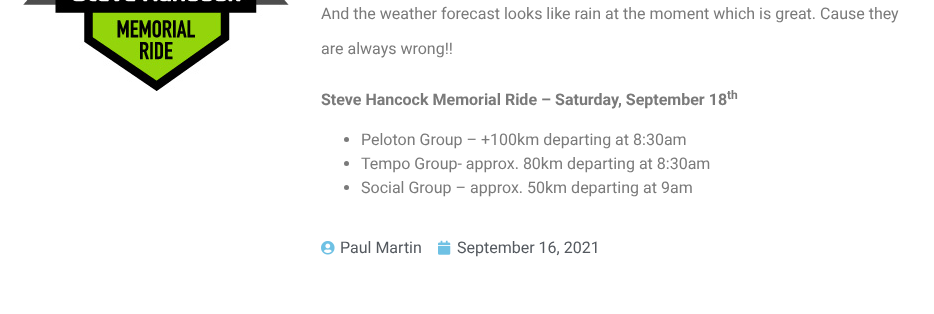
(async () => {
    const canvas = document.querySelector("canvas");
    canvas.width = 934;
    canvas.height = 314;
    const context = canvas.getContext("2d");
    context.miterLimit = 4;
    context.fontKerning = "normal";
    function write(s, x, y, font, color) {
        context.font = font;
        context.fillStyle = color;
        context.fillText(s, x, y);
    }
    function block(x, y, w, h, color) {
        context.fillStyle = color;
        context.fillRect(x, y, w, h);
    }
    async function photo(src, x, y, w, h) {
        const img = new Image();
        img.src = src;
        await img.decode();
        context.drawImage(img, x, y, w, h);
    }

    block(0, 0, 934, 314, "rgb(255, 255, 255)");
    await photo("media/1.png", 23, 0, 266, 91);
    write("And the weather forecast looks like rain at the moment which is great. Cause they", 321, 19, "16px Roboto", "rgb(122, 122, 122)");
    write("are always wrong!!", 321, 54, "16px Roboto", "rgb(122, 122, 122)");
    write("Steve Hancock Memorial Ride – Saturday, September 18", 321, 105, "bold 16px Roboto", "rgb(122, 122, 122)");
    write("th", 727, 99, "bold 12px Roboto", "rgb(122, 122, 122)");
    context.beginPath();
    context.arc(346.5, 139.5, 2.5, 0, Math.PI * 2);
    context.fill();
    write("Peloton Group – +100km departing at 8:30am", 361, 145, "16px Roboto", "rgb(122, 122, 122)");
    context.beginPath();
    context.arc(346.5, 163.5, 2.5, 0, Math.PI * 2);
    context.fill();
    write("Tempo Group- approx. 80km departing at 8:30am", 361, 169, "16px Roboto", "rgb(122, 122, 122)");
    context.beginPath();
    context.arc(346.5, 187.5, 2.5, 0, Math.PI * 2);
    context.fill();
    write("Social Group – approx. 50km departing at 9am", 361, 193, "16px Roboto", "rgb(122, 122, 122)");
    await photo("media/2.png", 321, 241, 14, 14);
    write("Paul Martin", 340, 253, "16px Roboto", "rgb(84, 89, 95)");
    await photo("media/3.png", 438, 240, 13, 15);
    write("September 16, 2021", 457, 253, "16px Roboto", "rgb(84, 89, 95)");
})();
